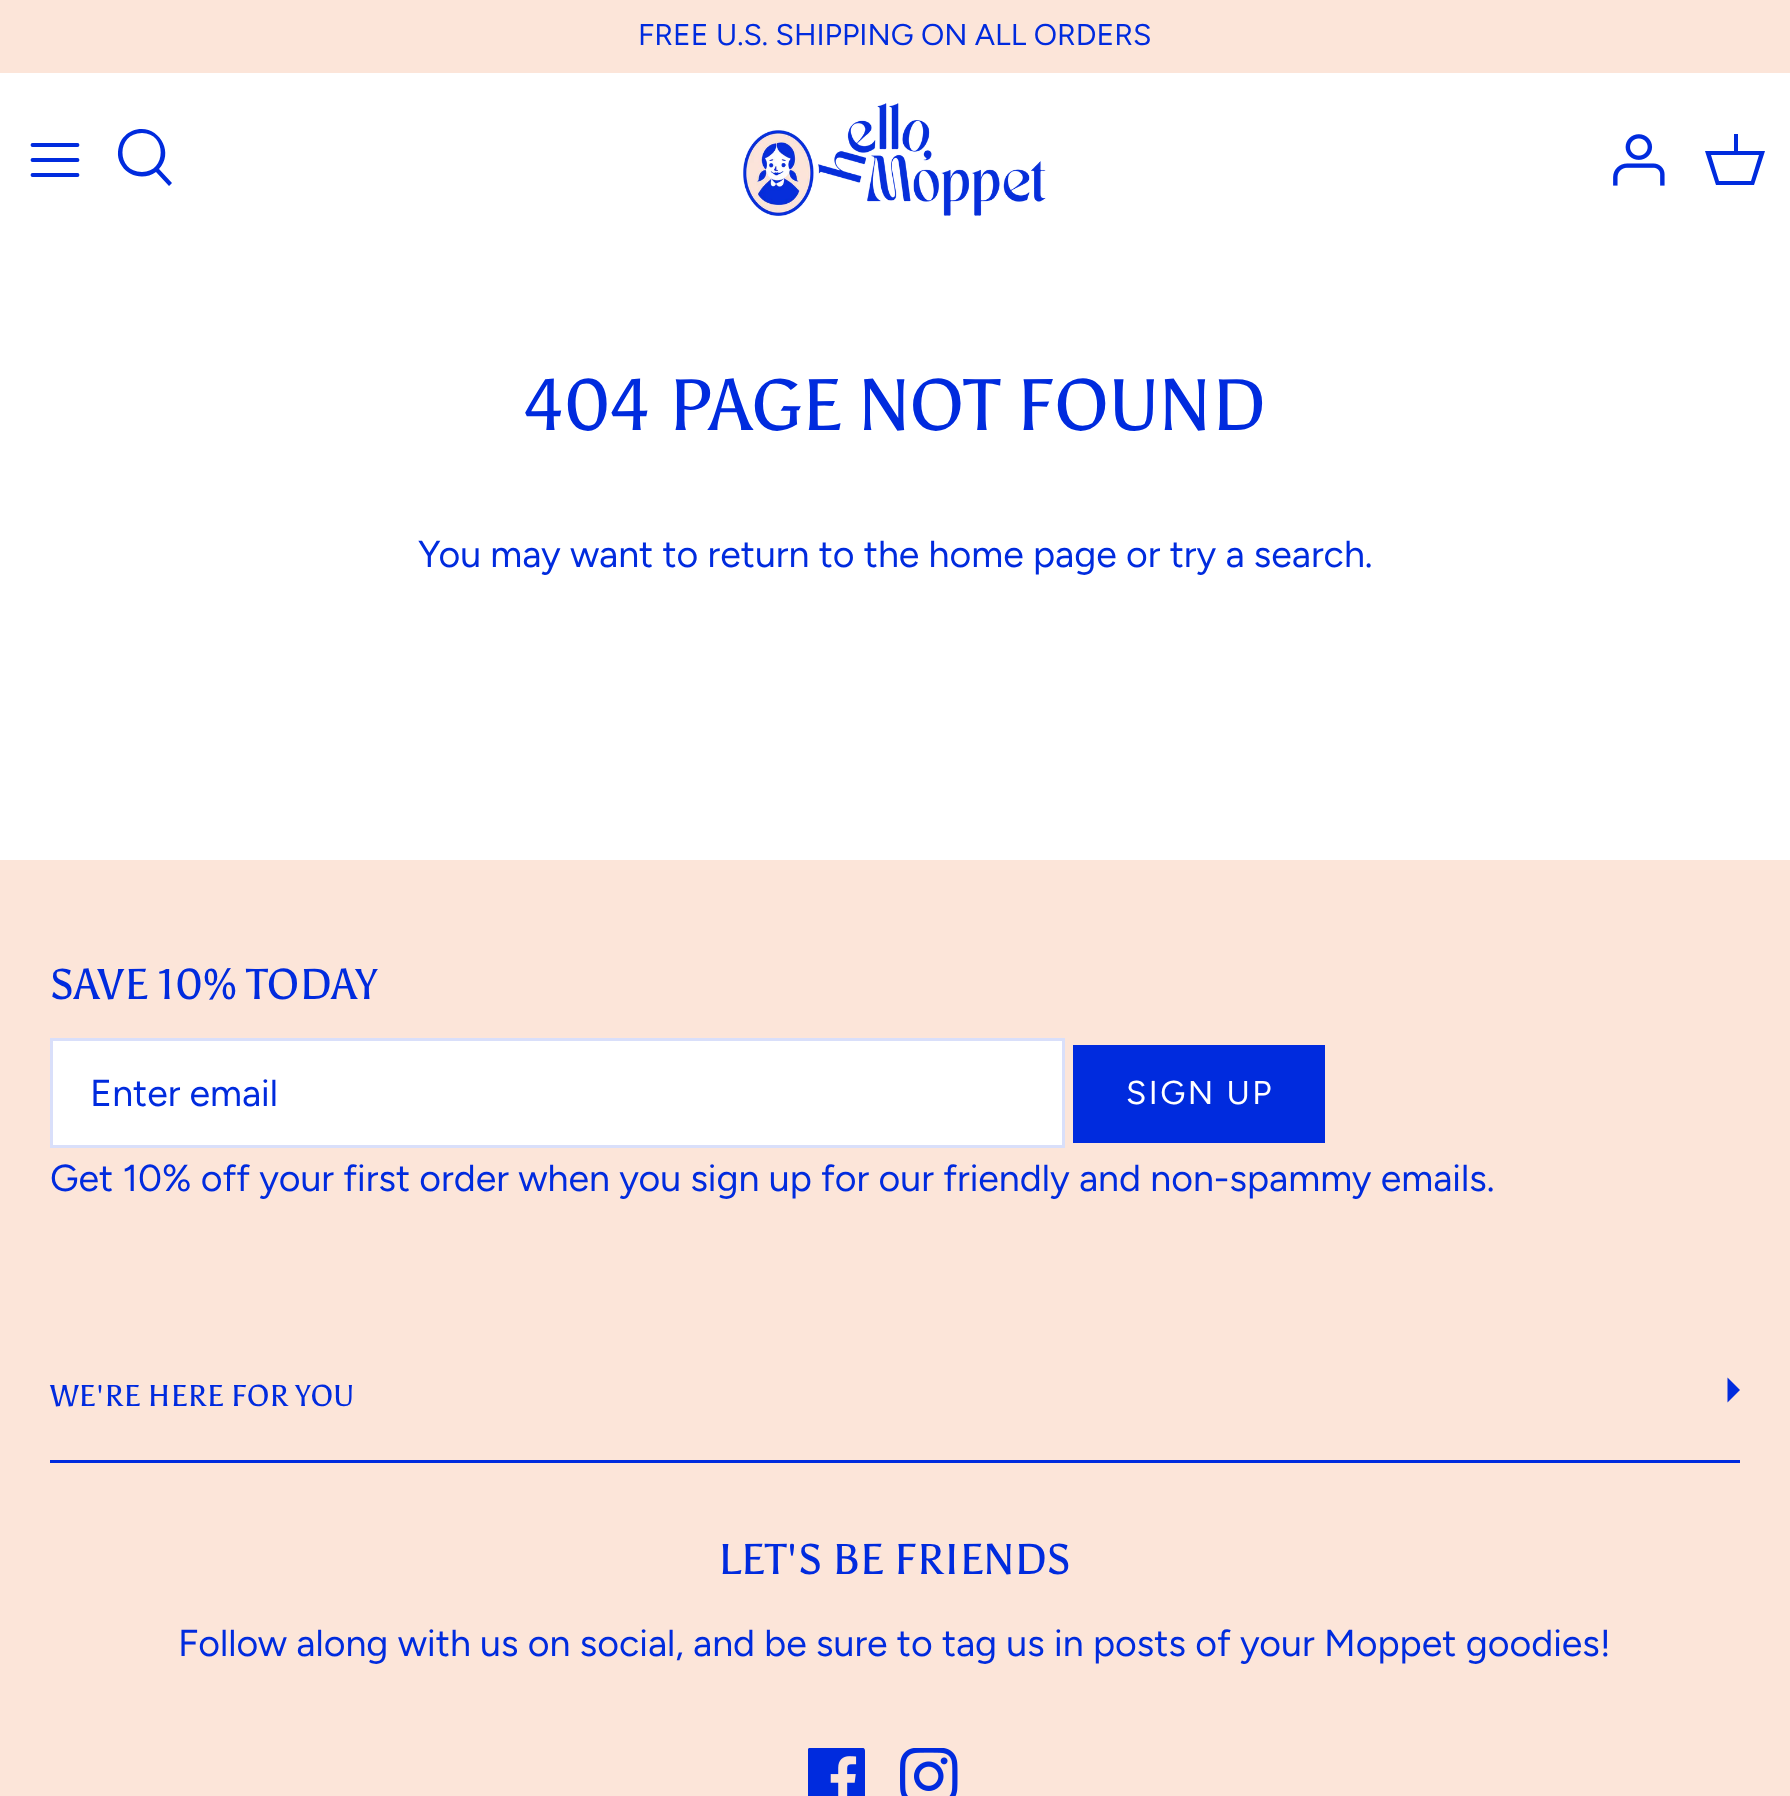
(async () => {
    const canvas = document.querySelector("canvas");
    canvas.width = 1790;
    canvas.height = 1796;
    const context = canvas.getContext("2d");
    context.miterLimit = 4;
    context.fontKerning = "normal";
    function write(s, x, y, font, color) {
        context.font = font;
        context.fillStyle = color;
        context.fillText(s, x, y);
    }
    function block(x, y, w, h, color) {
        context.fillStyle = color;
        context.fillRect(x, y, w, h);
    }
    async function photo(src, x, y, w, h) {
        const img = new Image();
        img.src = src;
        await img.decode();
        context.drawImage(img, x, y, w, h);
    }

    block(0, 0, 1790, 1796, "rgb(255, 255, 255)");
    block(0, 0, 1790, 73, "rgb(252, 229, 217)");
    write("FREE U.S. SHIPPING ON ALL ORDERS", 638, 45, "30px Figtree", "rgb(0, 43, 222)");
    context.beginPath();
    context.moveTo(32.5, 160);
    context.lineTo(77.5, 160);
    context.moveTo(32.5, 145);
    context.lineTo(77.5, 145);
    context.moveTo(32.5, 175);
    context.lineTo(77.5, 175);
    context.strokeStyle = "rgb(0, 43, 222)";
    context.lineWidth = 3.8;
    context.lineCap = "round";
    context.lineJoin = "round";
    context.stroke();
    context.beginPath();
    context.moveTo(159, 169);
    context.lineTo(172, 183);
    context.lineTo(169, 186);
    context.lineTo(156, 172);
    context.bezierCurveTo(145, 180, 129, 177, 122, 166);
    context.bezierCurveTo(117, 159, 117, 151, 120, 143);
    context.bezierCurveTo(122, 138, 127, 133, 132, 131);
    context.bezierCurveTo(156, 121, 176, 151, 159, 169);
    context.closePath();
    context.moveTo(142, 172);
    context.bezierCurveTo(167, 172, 167, 133, 142, 133);
    context.bezierCurveTo(116, 133, 116, 172, 142, 172);
    context.closePath();
    context.fill();
    await photo("media/1.png", 743, 103, 303, 113);
    await photo("media/2.png", 1613, 134, 52, 52);
    context.beginPath();
    context.moveTo(1734, 151);
    context.lineTo(1734, 134);
    context.lineTo(1738, 134);
    context.lineTo(1738, 151);
    context.lineTo(1765, 151);
    context.lineTo(1754, 185);
    context.lineTo(1716, 185);
    context.lineTo(1705, 151);
    context.closePath();
    context.moveTo(1711, 155);
    context.lineTo(1719, 181);
    context.lineTo(1751, 181);
    context.lineTo(1759, 155);
    context.closePath();
    context.fill();
    write("404 PAGE NOT FOUND", 524, 430, "72.5px Asul", "rgb(0, 43, 222)");
    write("You may want to return to the home page or try a search.", 418, 567, "37.5px Figtree", "rgb(0, 43, 222)");
    block(0, 860, 1790, 936, "rgb(252, 229, 217)");
    write("SAVE 10% TODAY", 50, 999, "43px Asul", "rgb(0, 43, 222)");
    context.fillStyle = "rgb(255, 255, 255)";
    context.beginPath();
    context.rect(51.5, 1039.5, 1012, 107);
    context.fill();
    context.strokeStyle = "rgb(217, 223, 250)";
    context.lineWidth = 3;
    context.lineJoin = "miter";
    context.stroke();
    write("Enter email", 90, 1106, "37.5px Figtree", "rgb(0, 43, 222)");
    block(1073, 1045, 252, 98, "rgb(0, 43, 222)");
    context.letterSpacing = "2.5px";
    write("SIGN UP", 1126, 1104, "33px Figtree", "rgb(255, 255, 255)");
    context.letterSpacing = "0px";
    write("Get 10% off your first order when you sign up for our friendly and non-spammy emails.", 50, 1191, "37.5px Figtree", "rgb(0, 43, 222)");
    block(50, 1460, 1690, 3, "rgb(0, 43, 222)");
    write("WE'RE HERE FOR YOU", 50, 1406, "30px Asul", "rgb(0, 43, 222)");
    context.beginPath();
    context.moveTo(1727.5, 1402.5);
    context.lineTo(1727.5, 1377.5);
    context.lineTo(1740, 1390);
    context.closePath();
    context.fill();
    write("LET'S BE FRIENDS", 718, 1574, "43px Asul", "rgb(0, 43, 222)");
    write("Follow along with us on social, and be sure to tag us in posts of your Moppet goodies!", 178, 1656, "37.5px Figtree", "rgb(0, 43, 222)");
    await photo("media/3.png", 808, 1748, 57, 48);
    await photo("media/4.png", 900, 1748, 58, 48);
})();
